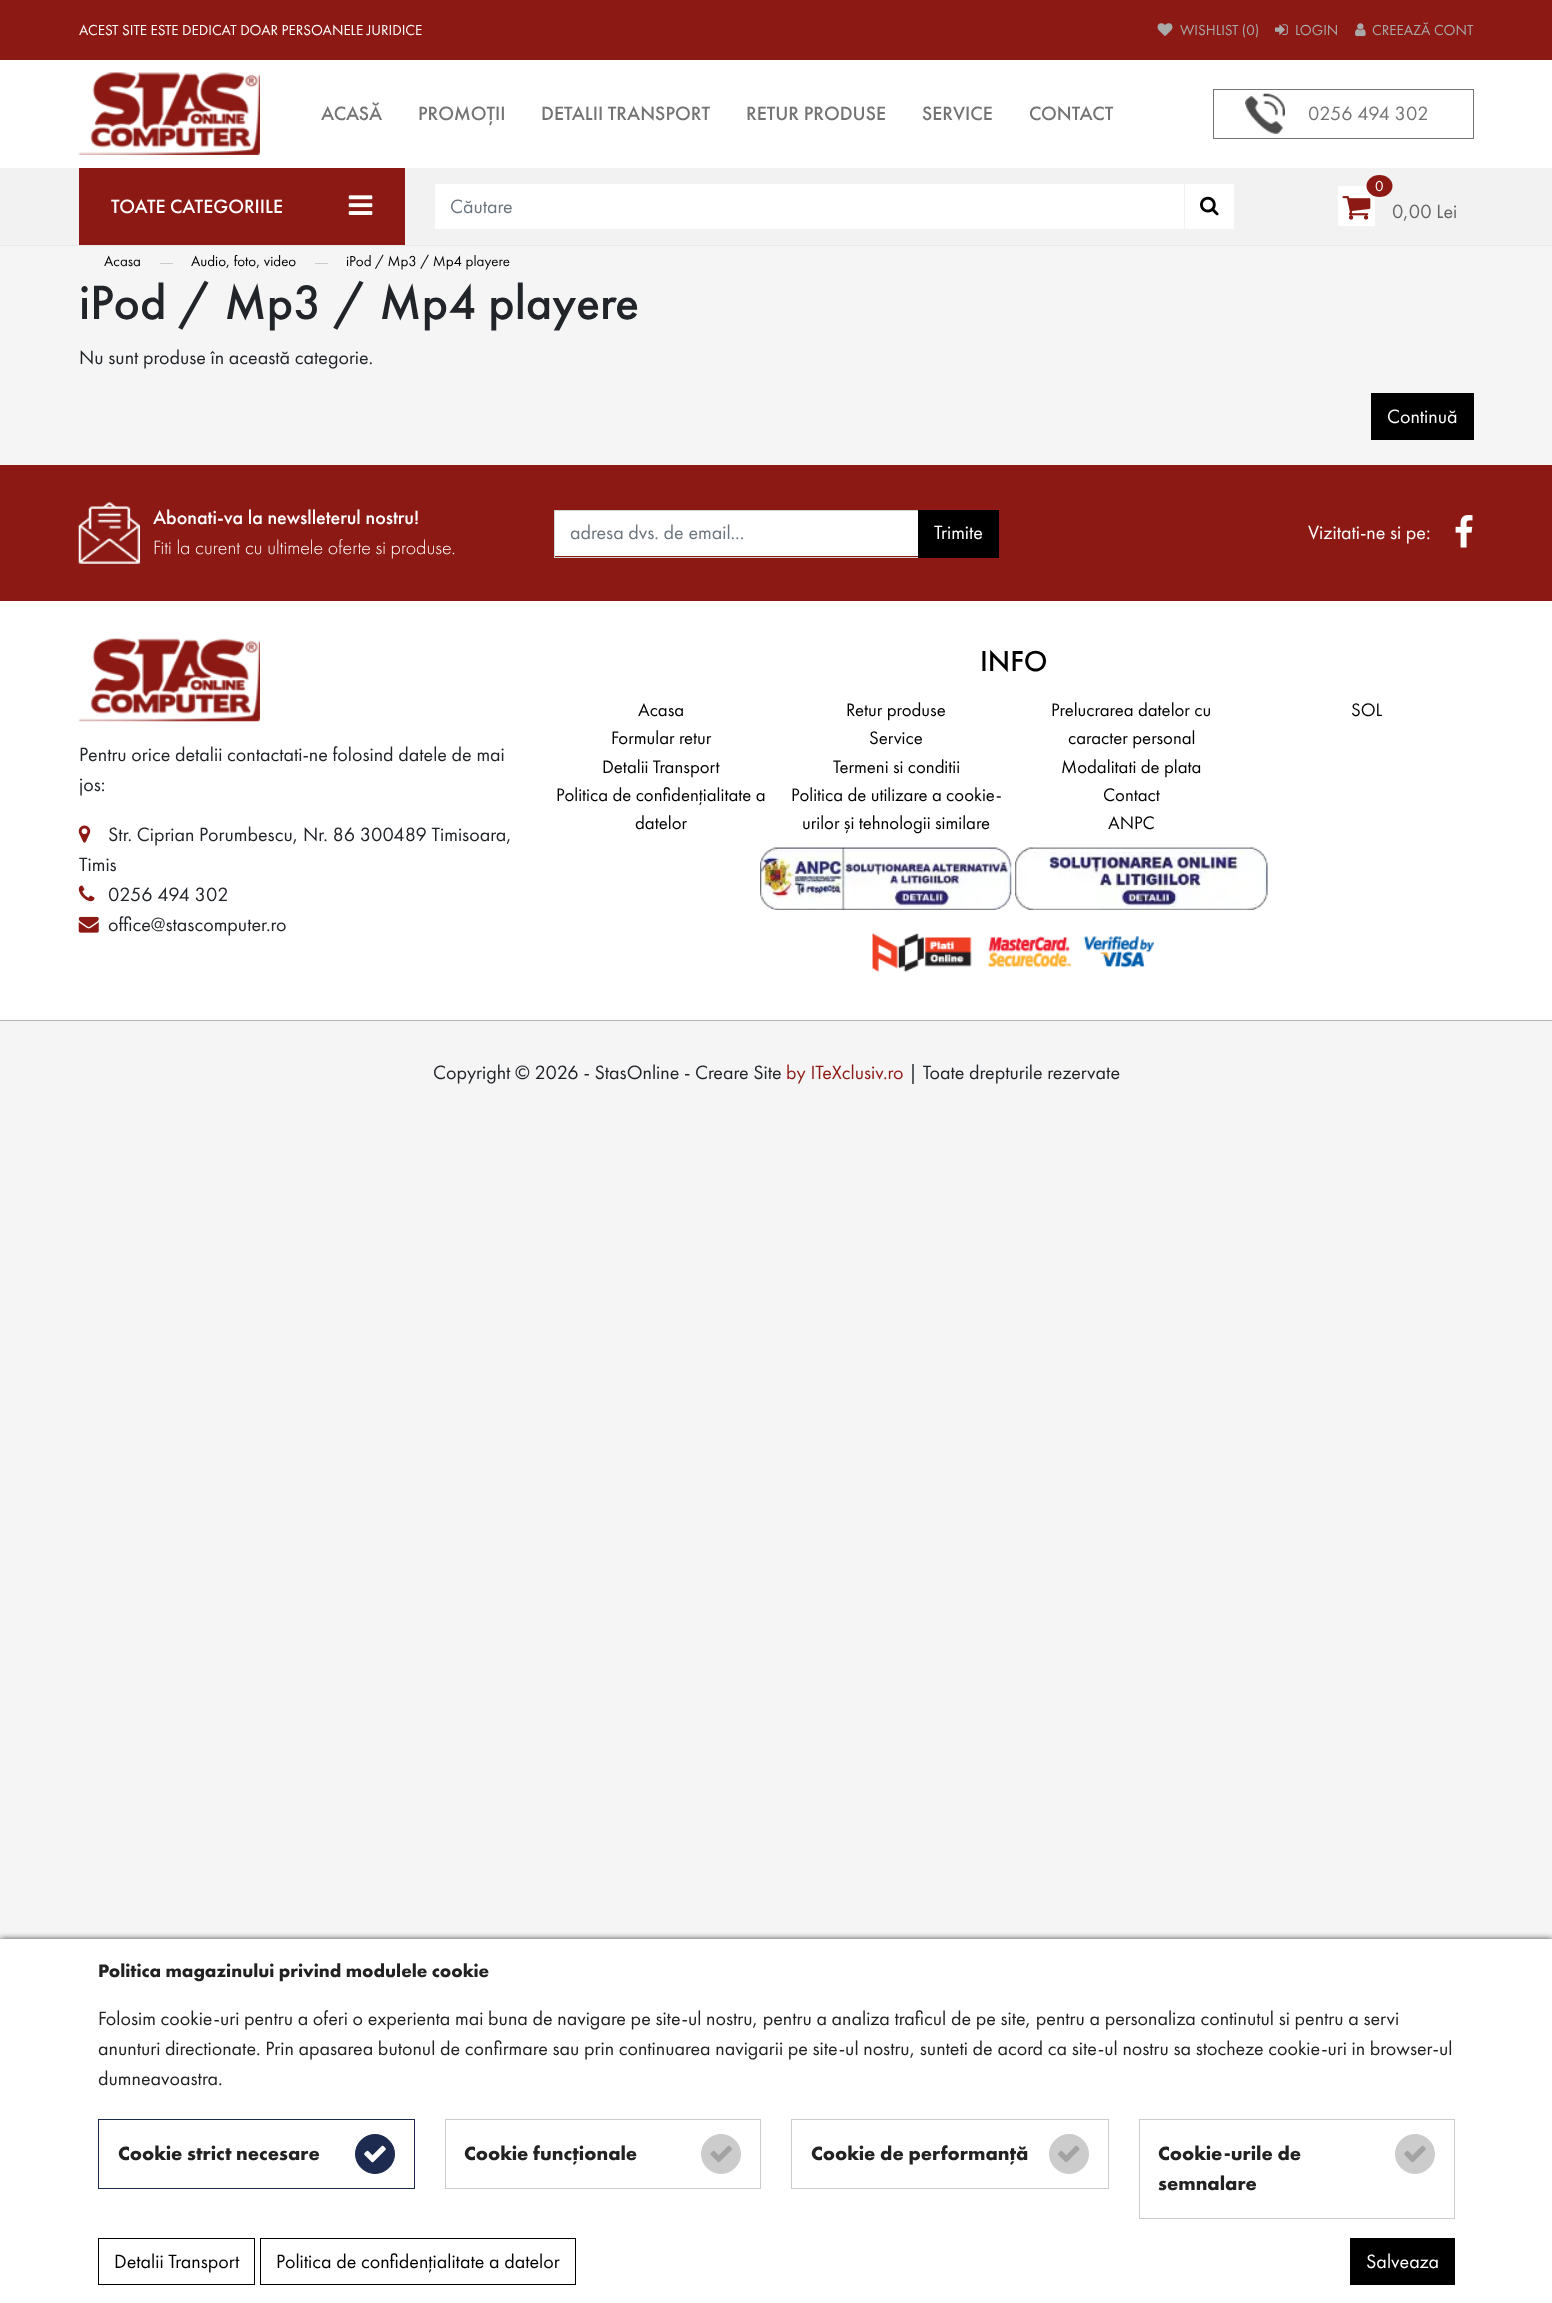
(async () => {
    const canvas = document.querySelector("canvas");
    canvas.width = 1552;
    canvas.height = 2303;
    const context = canvas.getContext("2d");
    context.miterLimit = 4;
    context.fontKerning = "normal";
    function write(s, x, y, font, color) {
        context.font = font;
        context.fillStyle = color;
        context.fillText(s, x, y);
    }
    function block(x, y, w, h, color) {
        context.fillStyle = color;
        context.fillRect(x, y, w, h);
    }
    async function photo(src, x, y, w, h) {
        const img = new Image();
        img.src = src;
        await img.decode();
        context.drawImage(img, x, y, w, h);
    }

    block(0, 0, 1552, 2303, "rgb(245, 245, 245)");
    block(0, 60, 1552, 108, "rgb(255, 255, 255)");
    block(0, 245, 1552, 1, "rgb(233, 233, 233)");
    block(0, 0, 1552, 60, "rgb(140, 25, 20)");
    write("ACEST SITE ESTE DEDICAT DOAR PERSOANELE JURIDICE", 79, 35, "15px Futura PT", "rgb(255, 255, 255)");
    await photo("media/1.png", 1157, 23, 16, 13);
    write("WISHLIST (0)", 1180, 35, "15px Futura PT", "rgb(169, 169, 169)");
    await photo("media/2.png", 1275, 24, 13, 11);
    write("LOGIN", 1295, 35, "15px Futura PT", "rgb(169, 169, 169)");
    await photo("media/3.png", 1355, 23, 11, 14);
    write("CREEAZĂ CONT", 1372, 35, "15px Futura PT", "rgb(169, 169, 169)");
    await photo("media/4.png", 78, 72, 182, 83);
    write("ACASĂ", 321, 120, "500 20px Futura PT", "rgb(115, 115, 115)");
    write("PROMOȚII", 418, 120, "500 20px Futura PT", "rgb(115, 115, 115)");
    write("DETALII TRANSPORT", 541, 120, "500 20px Futura PT", "rgb(115, 115, 115)");
    write("RETUR PRODUSE", 746, 120, "500 20px Futura PT", "rgb(115, 115, 115)");
    write("SERVICE", 922, 120, "500 20px Futura PT", "rgb(115, 115, 115)");
    write("CONTACT", 1029, 120, "500 20px Futura PT", "rgb(115, 115, 115)");
    context.strokeStyle = "rgb(115, 115, 115)";
    context.strokeRect(1213.5, 89.5, 260, 49);
    await photo("media/5.png", 1245, 93, 40, 41);
    write("0256 494 302", 1308, 120, "20px Futura PT", "rgb(115, 115, 115)");
    block(0, 168, 1552, 77, "rgb(242, 242, 242)");
    block(79, 168, 326, 77, "rgb(140, 25, 20)");
    write("TOATE CATEGORIILE", 111, 213, "500 20px Futura PT", "rgb(255, 255, 255)");
    await photo("media/6.png", 348, 195, 25, 20);
    block(435, 184, 749, 45, "rgb(255, 255, 255)");
    write("Căutare", 450, 213, "20px Futura PT", "rgb(108, 117, 125)");
    block(1185, 184, 49, 45, "rgb(255, 255, 255)");
    await photo("media/7.png", 1200, 196, 19, 20);
    block(1338, 186, 37, 40, "rgb(255, 255, 255)");
    await photo("media/8.png", 1342, 196, 29, 24);
    context.fillStyle = "rgb(140, 25, 20)";
    context.beginPath();
    context.ellipse(1379.5, 186, 13, 11, 0, 0, Math.PI * 2);
    context.fill();
    write("0", 1375, 191, "15px Futura PT", "rgb(255, 255, 255)");
    write("0,00 Lei", 1392, 218, "20px Futura PT", "rgb(102, 102, 102)");
    write("Acasa", 104, 266, "15px Futura PT", "rgb(0, 0, 0)");
    block(160, 263, 13, 1, "rgb(204, 204, 204)");
    write("Audio, foto, video", 191, 266, "15px Futura PT", "rgb(0, 0, 0)");
    block(315, 263, 13, 1, "rgb(204, 204, 204)");
    write("iPod / Mp3 / Mp4 playere", 346, 266, "15px Futura PT", "rgb(0, 0, 0)");
    write("iPod / Mp3 / Mp4 playere", 79, 319, "500 50px Futura PT", "rgb(33, 37, 41)");
    write("Nu sunt produse în această categorie.", 79, 364, "20px Futura PT", "rgb(33, 37, 41)");
    block(1371, 393, 103, 47, "rgb(0, 0, 0)");
    write("Continuă", 1387, 423, "20px Futura PT", "rgb(255, 255, 255)");
    block(0, 465, 1552, 136, "rgb(140, 25, 20)");
    await photo("media/9.png", 78, 502, 62, 62);
    write("Abonati-va la newslleterul nostru!", 153, 524, "500 20px Futura PT", "rgb(255, 255, 255)");
    write("Fiti la curent cu ultimele oferte si produse.", 153, 554, "300 20px Futura PT", "rgb(255, 255, 255)");
    block(555, 511, 363, 45, "rgb(255, 255, 255)");
    context.strokeStyle = "rgb(206, 212, 218)";
    context.strokeRect(554.5, 510.5, 364, 47);
    write("adresa dvs. de email...", 570, 539, "20px Futura PT", "rgb(108, 117, 125)");
    block(918, 510, 81, 48, "rgb(0, 0, 0)");
    write("Trimite", 934, 539, "20px Futura PT", "rgb(255, 255, 255)");
    write("Vizitati-ne si pe:", 1308, 539, "20px Futura PT", "rgb(255, 255, 255)");
    await photo("media/10.png", 1455, 515, 18, 33);
    block(0, 601, 1552, 419, "rgb(255, 255, 255)");
    await photo("media/11.png", 78, 638, 182, 84);
    write("Pentru orice detalii contactati-ne folosind datele de mai", 79, 761, "20px Futura PT", "rgb(33, 37, 41)");
    write("jos:", 79, 791, "20px Futura PT", "rgb(33, 37, 41)");
    await photo("media/12.png", 78, 825, 13, 18);
    write("Str. Ciprian Porumbescu, Nr. 86 300489 Timisoara,", 108, 841, "20px Futura PT", "rgb(33, 37, 41)");
    write("Timis", 79, 871, "20px Futura PT", "rgb(33, 37, 41)");
    await photo("media/13.png", 78, 885, 17, 17);
    write("0256 494 302", 108, 901, "20px Futura PT", "rgb(33, 37, 41)");
    await photo("media/14.png", 78, 916, 21, 17);
    write("office@stascomputer.ro", 108, 931, "20px Futura PT", "rgb(33, 37, 41)");
    write("INFO", 980, 671, "500 30px Futura PT", "rgb(0, 0, 0)");
    write("Acasa", 638, 716, "18.75px Futura PT", "rgb(0, 0, 0)");
    write("Retur produse", 846, 716, "18.75px Futura PT", "rgb(0, 0, 0)");
    write("Prelucrarea datelor cu", 1051, 716, "18.75px Futura PT", "rgb(0, 0, 0)");
    write("caracter personal", 1068, 744, "18.75px Futura PT", "rgb(0, 0, 0)");
    write("SOL", 1351, 716, "18.75px Futura PT", "rgb(0, 0, 0)");
    write("Formular retur", 611, 744, "18.75px Futura PT", "rgb(0, 0, 0)");
    write("Service", 869, 744, "18.75px Futura PT", "rgb(0, 0, 0)");
    write("Detalii Transport", 602, 773, "18.75px Futura PT", "rgb(0, 0, 0)");
    write("Termeni si conditii", 833, 773, "18.75px Futura PT", "rgb(0, 0, 0)");
    write("Modalitati de plata", 1061, 773, "18.75px Futura PT", "rgb(0, 0, 0)");
    write("Politica de confidențialitate a", 556, 801, "18.75px Futura PT", "rgb(0, 0, 0)");
    write("datelor", 635, 829, "18.75px Futura PT", "rgb(0, 0, 0)");
    write("Politica de utilizare a cookie-", 791, 801, "18.75px Futura PT", "rgb(0, 0, 0)");
    write("urilor și tehnologii similare", 802, 829, "18.75px Futura PT", "rgb(0, 0, 0)");
    write("Contact", 1103, 801, "18.75px Futura PT", "rgb(0, 0, 0)");
    write("ANPC", 1108, 829, "18.75px Futura PT", "rgb(0, 0, 0)");
    await photo("media/15.png", 760, 847, 252, 63);
    await photo("media/16.png", 1015, 847, 253, 63);
    await photo("media/17.png", 872, 933, 282, 39);
    block(0, 1020, 1552, 1, "rgb(184, 184, 184)");
    write("Copyright © 2026 - StasOnline - Creare Site", 433, 1079, "20px Futura PT", "rgb(33, 37, 41)");
    write("by ITeXclusiv.ro", 786, 1079, "20px Futura PT", "rgb(140, 25, 20)");
    write("| Toate drepturile rezervate", 908, 1079, "20px Futura PT", "rgb(33, 37, 41)");
    context.fillStyle = "rgba(0, 0, 0, 0.75)";
    context.filter = "blur(3px)";
    context.beginPath();
    context.rect(0, 1939, 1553, 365);
    context.fill();
    context.filter = "none";
    block(0, 1939, 1552, 364, "rgb(255, 255, 255)");
    write("Politica magazinului privind modulele cookie", 98, 1977, "bold 18.75px Futura PT", "rgb(34, 34, 34)");
    write("Folosim cookie-uri pentru a oferi o experienta mai buna de navigare pe site-ul nostru, pentru a analiza traficul de pe site, pentru a personaliza continutul si pentru a servi", 98, 2025, "20px Futura PT", "rgb(34, 34, 34)");
    write("anunturi directionate. Prin apasarea butonul de confirmare sau prin continuarea navigarii pe site-ul nostru, sunteti de acord ca site-ul nostru sa stocheze cookie-uri in browser-ul", 98, 2055, "20px Futura PT", "rgb(34, 34, 34)");
    write("dumneavoastra.", 98, 2085, "20px Futura PT", "rgb(34, 34, 34)");
    context.strokeStyle = "rgb(29, 43, 80)";
    context.strokeRect(98.5, 2119.5, 316, 69);
    write("Cookie strict necesare", 118, 2160, "bold 20px Futura PT", "rgb(34, 34, 34)");
    context.fillStyle = "rgb(29, 43, 80)";
    context.beginPath();
    context.arc(375, 2154, 19.5, 0, Math.PI * 2);
    context.fill();
    context.stroke();
    await photo("media/18.png", 364, 2145, 22, 18);
    context.strokeStyle = "rgb(204, 204, 204)";
    context.strokeRect(445.5, 2119.5, 315, 69);
    write("Cookie funcţionale", 464, 2160, "bold 20px Futura PT", "rgb(34, 34, 34)");
    context.fillStyle = "rgb(204, 204, 204)";
    context.beginPath();
    context.arc(721, 2154, 19.5, 0, Math.PI * 2);
    context.fill();
    context.stroke();
    await photo("media/19.png", 710, 2145, 22, 18);
    context.strokeRect(791.5, 2119.5, 317, 69);
    write("Cookie de performanţă", 811, 2160, "bold 20px Futura PT", "rgb(34, 34, 34)");
    context.fillStyle = "rgb(204, 204, 204)";
    context.beginPath();
    context.arc(1069, 2154, 19.5, 0, Math.PI * 2);
    context.fill();
    context.stroke();
    await photo("media/20.png", 1058, 2145, 22, 18);
    context.strokeRect(1139.5, 2119.5, 315, 99);
    write("Cookie-urile de", 1158, 2160, "bold 20px Futura PT", "rgb(34, 34, 34)");
    context.fillStyle = "rgb(204, 204, 204)";
    context.beginPath();
    context.arc(1415, 2154, 19.5, 0, Math.PI * 2);
    context.fill();
    context.stroke();
    await photo("media/21.png", 1404, 2145, 22, 18);
    write("semnalare", 1158, 2190, "bold 20px Futura PT", "rgb(34, 34, 34)");
    context.strokeStyle = "rgb(0, 0, 0)";
    context.strokeRect(98.5, 2238.5, 156, 46);
    write("Detalii Transport", 114, 2268, "20px Futura PT", "rgb(0, 0, 0)");
    context.strokeRect(260.5, 2238.5, 315, 46);
    write("Politica de confidențialitate a datelor", 276, 2268, "20px Futura PT", "rgb(0, 0, 0)");
    block(1350, 2238, 105, 47, "rgb(0, 0, 0)");
    write("Salveaza", 1366, 2268, "20px Futura PT", "rgb(255, 255, 255)");
})();
